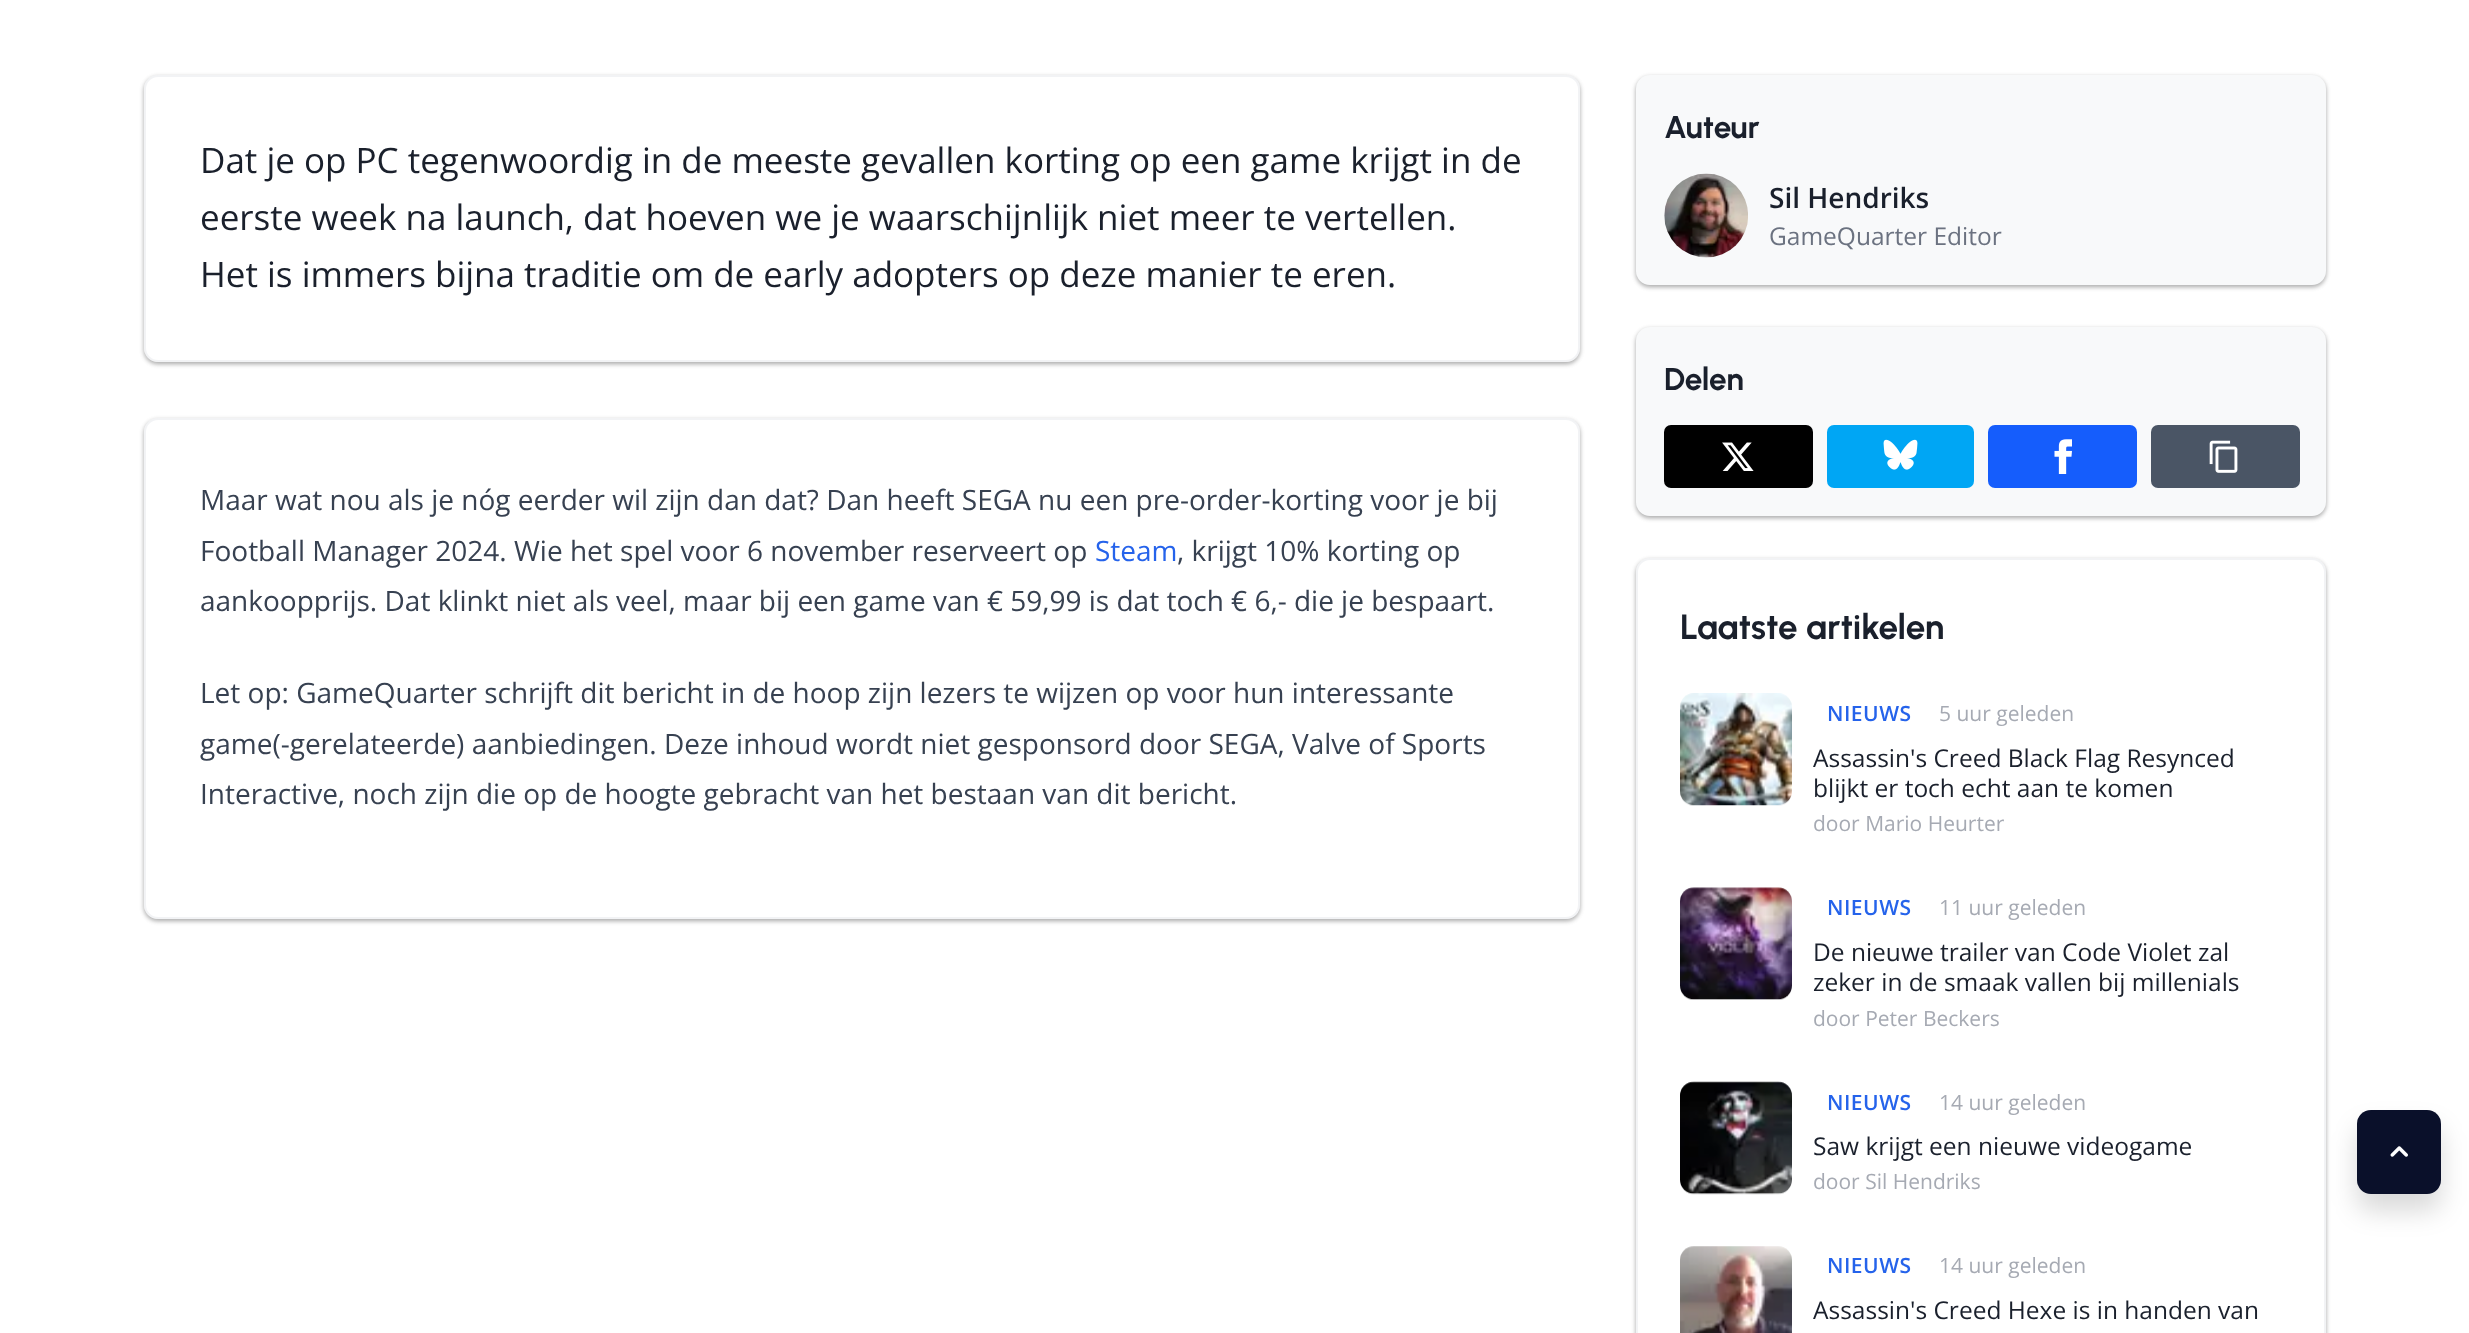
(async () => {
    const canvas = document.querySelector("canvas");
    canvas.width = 2469;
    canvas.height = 1333;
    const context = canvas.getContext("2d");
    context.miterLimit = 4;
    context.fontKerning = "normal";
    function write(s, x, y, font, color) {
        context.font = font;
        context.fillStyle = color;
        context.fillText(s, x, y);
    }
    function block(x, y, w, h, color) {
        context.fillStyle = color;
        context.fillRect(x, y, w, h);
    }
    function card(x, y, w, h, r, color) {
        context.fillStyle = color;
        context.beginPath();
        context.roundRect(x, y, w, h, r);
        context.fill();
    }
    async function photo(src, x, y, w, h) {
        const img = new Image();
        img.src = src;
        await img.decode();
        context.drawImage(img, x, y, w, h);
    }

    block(0, 0, 2469, 1333, "rgb(255, 255, 255)");
    context.fillStyle = "rgba(0, 0, 0, 0.24)";
    context.filter = "blur(2px)";
    context.beginPath();
    context.roundRect(144, 77, 1436, 287, 14);
    context.fill();
    context.filter = "none";
    context.fillStyle = "rgba(0, 0, 0, 0.12)";
    context.filter = "blur(2.5px)";
    context.beginPath();
    context.roundRect(144, 77, 1436, 287, 14);
    context.fill();
    context.filter = "none";
    card(144, 75, 1436, 287, 14, "rgb(255, 255, 255)");
    context.beginPath();
    context.roundRect(145, 76, 1434, 285, 13);
    context.strokeStyle = "rgba(229, 231, 235, 0.5)";
    context.lineWidth = 2;
    context.stroke();
    write("Dat je op PC tegenwoordig in de meeste gevallen korting op een game krijgt in de", 200, 173, "35px Open Sans", "rgb(26, 32, 44)");
    write("eerste week na launch, dat hoeven we je waarschijnlijk niet meer te vertellen.", 200, 230, "35px Open Sans", "rgb(26, 32, 44)");
    write("Het is immers bijna traditie om de early adopters op deze manier te eren.", 200, 287, "35px Open Sans", "rgb(26, 32, 44)");
    context.fillStyle = "rgba(0, 0, 0, 0.24)";
    context.filter = "blur(2px)";
    context.beginPath();
    context.roundRect(144, 420, 1436, 501, 14);
    context.fill();
    context.filter = "none";
    context.fillStyle = "rgba(0, 0, 0, 0.12)";
    context.filter = "blur(2.5px)";
    context.beginPath();
    context.roundRect(144, 420, 1436, 501, 14);
    context.fill();
    context.filter = "none";
    card(144, 418, 1436, 501, 14, "rgb(255, 255, 255)");
    context.beginPath();
    context.roundRect(145, 419, 1434, 499, 13);
    context.stroke();
    write("Maar wat nou als je nóg eerder wil zijn dan dat? Dan heeft SEGA nu een pre-order-korting voor je bij", 200, 510, "28px Open Sans", "rgb(55, 65, 81)");
    write("Football Manager 2024. Wie het spel voor 6 november reserveert op", 200, 561, "28px Open Sans", "rgb(55, 65, 81)");
    write("Steam", 1095, 561, "28px Open Sans", "rgb(37, 99, 235)");
    write(", krijgt 10% korting op", 1177, 561, "28px Open Sans", "rgb(55, 65, 81)");
    write("aankoopprijs. Dat klinkt niet als veel, maar bij een game van € 59,99 is dat toch € 6,- die je bespaart.", 200, 611, "28px Open Sans", "rgb(55, 65, 81)");
    write("Let op: GameQuarter schrijft dit bericht in de hoop zijn lezers te wijzen op voor hun interessante", 200, 703, "28px Open Sans", "rgb(55, 65, 81)");
    write("game(-gerelateerde) aanbiedingen. Deze inhoud wordt niet gesponsord door SEGA, Valve of Sports", 200, 754, "28px Open Sans", "rgb(55, 65, 81)");
    write("Interactive, noch zijn die op de hoogte gebracht van het bestaan van dit bericht.", 200, 804, "28px Open Sans", "rgb(55, 65, 81)");
    context.fillStyle = "rgba(0, 0, 0, 0.24)";
    context.filter = "blur(2px)";
    context.beginPath();
    context.roundRect(1636, 77, 690, 210, 14);
    context.fill();
    context.filter = "none";
    context.fillStyle = "rgba(0, 0, 0, 0.12)";
    context.filter = "blur(2.5px)";
    context.beginPath();
    context.roundRect(1636, 77, 690, 210, 14);
    context.fill();
    context.filter = "none";
    card(1636, 75, 690, 210, 14, "rgb(248, 249, 250)");
    write("Auteur", 1664, 138, "bold 31.5px Urbanist", "rgb(26, 32, 44)");
    await photo("media/1.png", 1664, 173, 84, 85);
    write("Sil Hendriks", 1769, 208, "600 28px Open Sans", "rgb(26, 32, 44)");
    write("GameQuarter Editor", 1769, 245, "24.5px Open Sans", "rgb(107, 114, 128)");
    context.fillStyle = "rgba(0, 0, 0, 0.24)";
    context.filter = "blur(2px)";
    context.beginPath();
    context.roundRect(1636, 329, 690, 189, 14);
    context.fill();
    context.filter = "none";
    context.fillStyle = "rgba(0, 0, 0, 0.12)";
    context.filter = "blur(2.5px)";
    context.beginPath();
    context.roundRect(1636, 329, 690, 189, 14);
    context.fill();
    context.filter = "none";
    card(1636, 327, 690, 189, 14, "rgb(248, 249, 250)");
    write("Delen", 1664, 390, "bold 31.5px Urbanist", "rgb(26, 32, 44)");
    card(1664, 425, 149, 63, 7, "rgb(0, 0, 0)");
    await photo("media/2.png", 1722, 442, 32, 29);
    card(1827, 425, 147, 63, 7, "rgb(0, 166, 244)");
    await photo("media/3.png", 1883, 439, 35, 31);
    card(1988, 425, 149, 63, 7, "rgb(21, 93, 252)");
    await photo("media/4.png", 2054, 439, 18, 35);
    card(2151, 425, 149, 63, 7, "rgb(74, 85, 101)");
    await photo("media/5.png", 2209, 440, 29, 33);
    context.fillStyle = "rgba(0, 0, 0, 0.24)";
    context.filter = "blur(2px)";
    context.beginPath();
    context.roundRect(1636, 560, 690, 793, 14);
    context.fill();
    context.filter = "none";
    context.fillStyle = "rgba(0, 0, 0, 0.12)";
    context.filter = "blur(2.5px)";
    context.beginPath();
    context.roundRect(1636, 560, 690, 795, 14);
    context.fill();
    context.filter = "none";
    card(1636, 558, 690, 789, 14, "rgb(255, 255, 255)");
    context.beginPath();
    context.roundRect(1637, 559, 688, 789, 13);
    context.stroke();
    write("Laatste artikelen", 1680, 639, "bold 35px Urbanist", "rgb(26, 32, 44)");
    await photo("media/6.png", 1680, 693, 112, 113);
    context.letterSpacing = "0.5px";
    write("NIEUWS", 1827, 721, "600 21px Open Sans", "rgb(37, 99, 235)");
    context.letterSpacing = "0px";
    write("5 uur geleden", 1939, 721, "21px Open Sans", "rgb(166, 170, 179)");
    write("Assassin's Creed Black Flag Resynced", 1813, 767, "24.5px Open Sans", "rgb(26, 32, 44)");
    write("blijkt er toch echt aan te komen", 1813, 797, "24.5px Open Sans", "rgb(26, 32, 44)");
    write("door Mario Heurter", 1813, 831, "21px Open Sans", "rgb(166, 170, 179)");
    await photo("media/7.png", 1680, 887, 112, 113);
    context.letterSpacing = "0.5px";
    write("NIEUWS", 1827, 915, "600 21px Open Sans", "rgb(37, 99, 235)");
    context.letterSpacing = "0px";
    write("11 uur geleden", 1939, 915, "21px Open Sans", "rgb(166, 170, 179)");
    write("De nieuwe trailer van Code Violet zal", 1813, 961, "24.5px Open Sans", "rgb(26, 32, 44)");
    write("zeker in de smaak vallen bij millenials", 1813, 991, "24.5px Open Sans", "rgb(26, 32, 44)");
    write("door Peter Beckers", 1813, 1026, "21px Open Sans", "rgb(166, 170, 179)");
    await photo("media/8.png", 1680, 1081, 112, 114);
    context.letterSpacing = "0.5px";
    write("NIEUWS", 1827, 1110, "600 21px Open Sans", "rgb(37, 99, 235)");
    context.letterSpacing = "0px";
    write("14 uur geleden", 1939, 1110, "21px Open Sans", "rgb(166, 170, 179)");
    write("Saw krijgt een nieuwe videogame", 1813, 1155, "24.5px Open Sans", "rgb(26, 32, 44)");
    write("door Sil Hendriks", 1813, 1189, "21px Open Sans", "rgb(166, 170, 179)");
    await photo("media/9.png", 1680, 1246, 112, 87);
    context.letterSpacing = "0.5px";
    write("NIEUWS", 1827, 1273, "600 21px Open Sans", "rgb(37, 99, 235)");
    context.letterSpacing = "0px";
    write("14 uur geleden", 1939, 1273, "21px Open Sans", "rgb(166, 170, 179)");
    write("Assassin's Creed Hexe is in handen van", 1813, 1319, "24.5px Open Sans", "rgb(26, 32, 44)");
    context.fillStyle = "rgba(0, 0, 0, 0.15)";
    context.filter = "blur(13px)";
    context.beginPath();
    context.roundRect(2357, 1127, 84, 84, 14);
    context.fill();
    context.filter = "none";
    card(2357, 1110, 84, 84, 14, "rgb(10, 16, 42)");
    await photo("media/10.png", 2390, 1146, 18, 11);
})();
